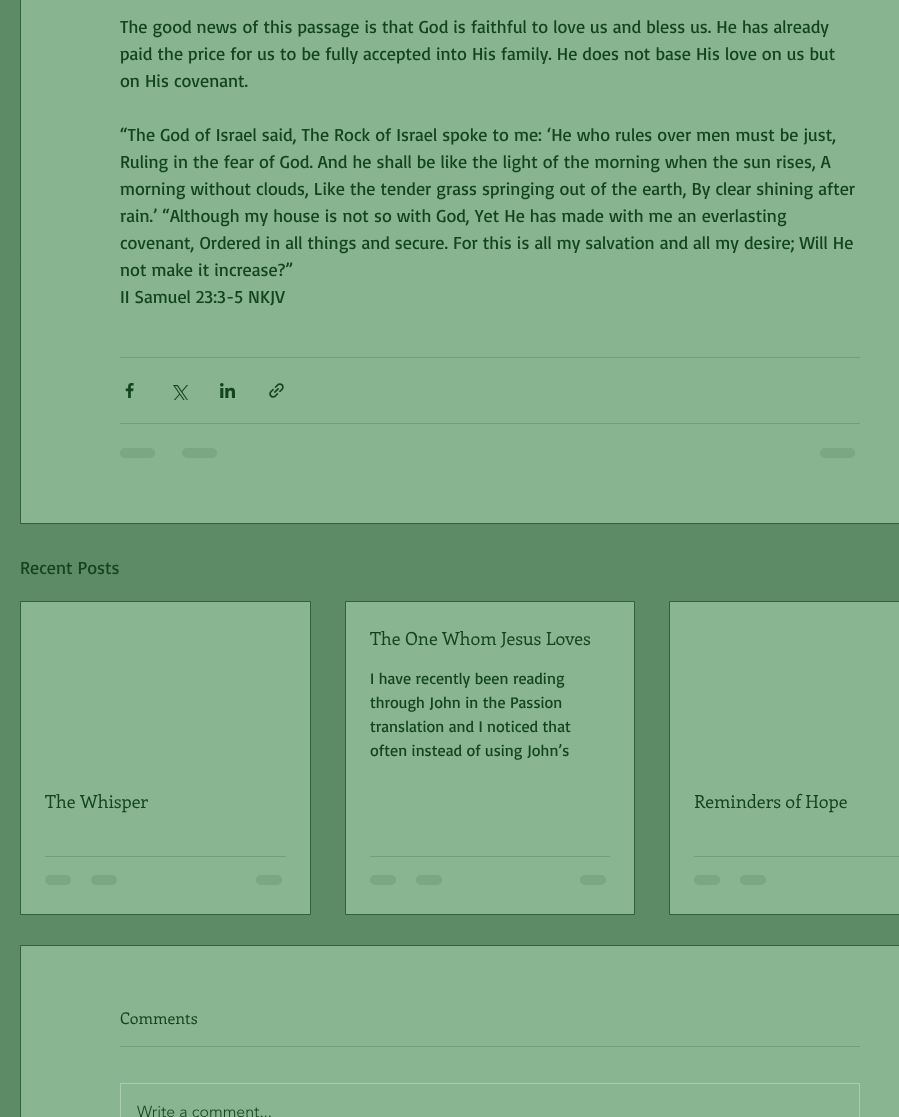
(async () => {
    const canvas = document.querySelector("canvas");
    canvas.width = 899;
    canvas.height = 1117;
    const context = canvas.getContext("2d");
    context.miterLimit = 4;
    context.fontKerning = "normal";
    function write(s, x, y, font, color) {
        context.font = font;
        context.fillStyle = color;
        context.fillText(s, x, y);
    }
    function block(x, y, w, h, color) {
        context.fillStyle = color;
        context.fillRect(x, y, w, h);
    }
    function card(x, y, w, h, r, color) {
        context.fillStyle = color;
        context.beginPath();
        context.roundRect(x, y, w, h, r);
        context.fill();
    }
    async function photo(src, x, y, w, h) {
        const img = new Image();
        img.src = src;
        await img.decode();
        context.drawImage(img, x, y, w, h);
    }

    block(0, 0, 899, 1117, "rgb(93, 139, 101)");
    context.fillStyle = "rgb(136, 181, 144)";
    context.beginPath();
    context.rect(20.5, -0.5, 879, 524);
    context.fill();
    context.strokeStyle = "rgb(48, 97, 56)";
    context.stroke();
    write("The good news of this passage is that God is faithful to love us and bless us. He has already", 120, 33, "18px Basic", "rgb(19, 69, 27)");
    write("paid the price for us to be fully accepted into His family. He does not base His love on us but", 120, 60, "18px Basic", "rgb(19, 69, 27)");
    write("on His covenant.", 120, 87, "18px Basic", "rgb(19, 69, 27)");
    write("“The God of Israel said, The Rock of Israel spoke to me: ‘He who rules over men must be just,", 120, 141, "18px Basic", "rgb(19, 69, 27)");
    write("Ruling in the fear of God. And he shall be like the light of the morning when the sun rises, A", 120, 168, "18px Basic", "rgb(19, 69, 27)");
    write("morning without clouds, Like the tender grass springing out of the earth, By clear shining after", 120, 195, "18px Basic", "rgb(19, 69, 27)");
    write("rain.’ “Although my house is not so with God, Yet He has made with me an everlasting", 120, 222, "18px Basic", "rgb(19, 69, 27)");
    write("covenant, Ordered in all things and secure. For this is all my salvation and all my desire; Will He", 120, 249, "18px Basic", "rgb(19, 69, 27)");
    write("not make it increase?”", 120, 276, "18px Basic", "rgb(19, 69, 27)");
    write("II Samuel 23:3-5 NKJV", 120, 303, "18px Basic", "rgb(19, 69, 27)");
    block(120, 357, 740, 1, "rgb(113, 159, 121)");
    await photo("media/1.png", 125, 383, 9, 15);
    await photo("media/2.png", 173, 385, 15, 15);
    await photo("media/3.png", 220, 383, 15, 15);
    await photo("media/4.png", 269, 383, 15, 15);
    block(120, 423, 740, 1, "rgb(113, 159, 121)");
    card(120, 448, 35, 10, 5, "rgb(122, 168, 130)");
    card(182, 448, 35, 10, 5, "rgb(122, 168, 130)");
    card(820, 448, 35, 10, 5, "rgb(122, 168, 130)");
    write("Recent Posts", 20, 574, "18px Basic", "rgb(19, 69, 27)");
    context.fillStyle = "rgb(137, 181, 144)";
    context.beginPath();
    context.rect(345.5, 601.5, 289, 313);
    context.fill();
    context.strokeStyle = "rgb(49, 97, 56)";
    context.stroke();
    context.save();
    context.beginPath();
    context.rect(370, 626, 240, 24);
    context.clip();
    write("The One Whom Jesus Loves", 370, 645, "18px Enriqueta", "rgb(19, 69, 27)");
    context.restore();
    write("I have recently been reading", 370, 684, "16px Basic", "rgb(19, 69, 27)");
    write("through John in the Passion", 370, 708, "16px Basic", "rgb(19, 69, 27)");
    write("translation and I noticed that", 370, 732, "16px Basic", "rgb(19, 69, 27)");
    write("often instead of using John’s", 370, 756, "16px Basic", "rgb(19, 69, 27)");
    block(370, 856, 240, 1, "rgb(113, 159, 121)");
    card(370, 875, 26, 10, 5, "rgb(123, 168, 130)");
    card(416, 875, 26, 10, 5, "rgb(123, 168, 130)");
    card(580, 875, 26, 10, 5, "rgb(123, 168, 130)");
    context.fillStyle = "rgb(137, 181, 144)";
    context.beginPath();
    context.rect(20.5, 601.5, 290, 313);
    context.fill();
    context.stroke();
    write("The Whisper", 45, 808, "18px Enriqueta", "rgb(19, 69, 27)");
    block(45, 856, 241, 1, "rgb(113, 159, 121)");
    card(45, 875, 26, 10, 5, "rgb(123, 168, 130)");
    card(91, 875, 26, 10, 5, "rgb(123, 168, 130)");
    card(256, 875, 26, 10, 5, "rgb(123, 168, 130)");
    context.fillStyle = "rgb(137, 181, 144)";
    context.beginPath();
    context.rect(669.5, 601.5, 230, 313);
    context.fill();
    context.stroke();
    write("Reminders of Hope", 694, 808, "18px Enriqueta", "rgb(19, 69, 27)");
    block(694, 856, 205, 1, "rgb(113, 159, 121)");
    card(694, 875, 26, 10, 5, "rgb(123, 168, 130)");
    card(740, 875, 26, 10, 5, "rgb(123, 168, 130)");
    context.fillStyle = "rgb(137, 181, 144)";
    context.beginPath();
    context.rect(20.5, 945.5, 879, 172);
    context.fill();
    context.stroke();
    write("Comments", 120, 1024, "16px Enriqueta", "rgb(19, 69, 27)");
    block(120, 1046, 740, 1, "rgb(113, 159, 121)");
    context.strokeStyle = "rgb(172, 203, 177)";
    context.strokeRect(120.5, 1083.5, 739, 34);
    write("Write a comment...", 137, 1117, "300 16px 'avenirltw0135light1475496'", "rgb(19, 69, 27)");
})();
